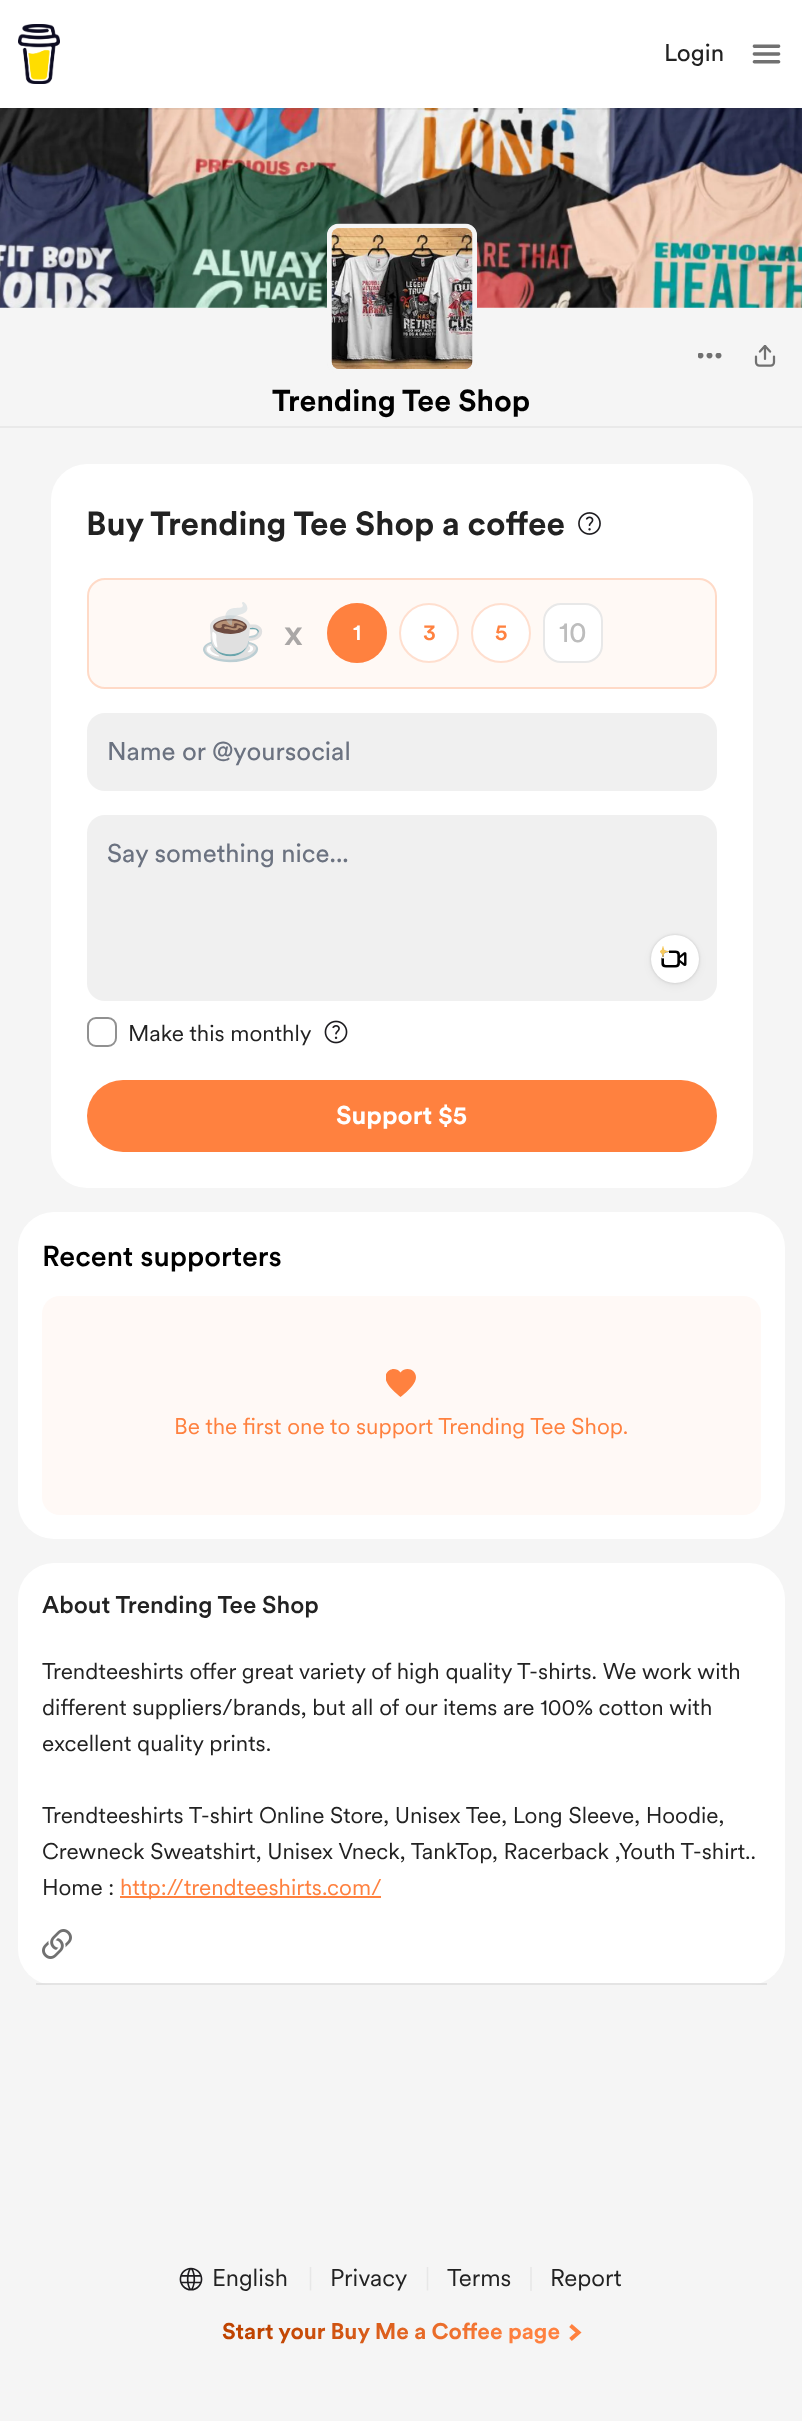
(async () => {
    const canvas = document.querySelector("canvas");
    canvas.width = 802;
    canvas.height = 2424;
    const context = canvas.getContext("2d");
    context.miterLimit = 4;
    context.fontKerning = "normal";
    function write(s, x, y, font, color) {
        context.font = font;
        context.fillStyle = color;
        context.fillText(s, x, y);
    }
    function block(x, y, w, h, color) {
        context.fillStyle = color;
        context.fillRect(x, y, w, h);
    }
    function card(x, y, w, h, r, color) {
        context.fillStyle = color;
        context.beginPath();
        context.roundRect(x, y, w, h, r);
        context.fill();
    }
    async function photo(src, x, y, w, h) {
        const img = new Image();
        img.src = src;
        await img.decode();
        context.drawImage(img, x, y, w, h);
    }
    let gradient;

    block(0, 0, 802, 2424, "rgb(255, 255, 255)");
    block(0, 307, 802, 2114, "rgb(245, 245, 245)");
    await photo("media/3.png", 0, 108, 802, 200);
    context.save();
    context.beginPath();
    context.rect(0, 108, 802, 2);
    context.clip();
    context.fillStyle = "rgba(0, 0, 0, 0.06)";
    context.filter = "blur(1px)";
    context.beginPath();
    context.rect(0, 2, 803, 108);
    context.fill();
    context.filter = "none";
    context.restore();
    await photo("media/1.png", 18, 24, 42, 60);
    write("Login", 664, 61, "24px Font", "rgb(34, 34, 34)");
    await photo("media/2.png", 752, 44, 29, 20);
    await photo("media/4.png", 0, 307, 802, 1);
    await photo("media/5.png", 698, 353, 24, 6);
    await photo("media/6.png", 754, 345, 22, 22);
    await photo("media/7.png", 327, 223, 150, 150);
    context.beginPath();
    context.roundRect(329.5, 226.5, 145, 145, 9.5);
    context.strokeStyle = "rgb(245, 245, 245)";
    context.lineWidth = 5;
    context.stroke();
    await photo("media/8.png", 331, 228, 142, 141);
    write("Trending Tee Shop", 272, 411, "bold 30px Font", "rgb(0, 0, 0)");
    block(0, 426, 802, 2, "rgb(233, 233, 233)");
    card(51, 464, 702, 724, 36, "rgb(255, 255, 255)");
    write("Buy Trending Tee Shop a coffee", 86, 535, "bold 33px Font", "rgb(34, 34, 34)");
    await photo("media/9.png", 578, 512, 23, 23);
    card(87, 578, 630, 111, 18, "rgb(255, 249, 245)");
    context.beginPath();
    context.roundRect(88, 579, 628, 109, 17);
    context.strokeStyle = "rgba(255, 129, 63, 0.25)";
    context.lineWidth = 2;
    context.stroke();
    write("☕", 199, 651, "54px Noto Color Emoji", "rgb(0, 0, 0)");
    write("x", 284, 645, "500 36px Font", "rgb(170, 167, 166)");
    context.fillStyle = "rgb(255, 129, 63)";
    context.beginPath();
    context.arc(357, 633, 30, 0, Math.PI * 2);
    context.fill();
    context.beginPath();
    context.arc(357, 633, 29, 0, Math.PI * 2);
    context.stroke();
    write("1", 353, 640, "500 22.5px Font", "rgb(255, 255, 255)");
    context.beginPath();
    context.arc(429, 633, 30, 0, Math.PI * 2);
    context.fill();
    context.beginPath();
    context.arc(429, 633, 29, 0, Math.PI * 2);
    context.stroke();
    write("3", 423, 640, "500 22.5px Font", "rgb(255, 129, 63)");
    context.fillStyle = "rgb(255, 255, 255)";
    context.beginPath();
    context.arc(501, 633, 30, 0, Math.PI * 2);
    context.fill();
    context.beginPath();
    context.arc(501, 633, 29, 0, Math.PI * 2);
    context.stroke();
    write("5", 495, 640, "500 22.5px Font", "rgb(255, 129, 63)");
    card(543, 603, 60, 60, 18, "rgb(255, 255, 255)");
    context.beginPath();
    context.roundRect(544, 604, 58, 58, 17);
    context.strokeStyle = "rgba(34, 34, 34, 0.1)";
    context.stroke();
    write("10", 559, 642, "28.5px Font", "rgb(189, 189, 189)");
    card(87, 713, 630, 78, 18, "rgb(240, 240, 240)");
    write("Name or @yoursocial", 107, 760, "25.5px Font", "rgb(107, 114, 128)");
    card(87, 815, 630, 186, 18, "rgb(240, 240, 240)");
    write("Say something nice...", 107, 862, "25.5px Font", "rgb(107, 114, 128)");
    context.fillStyle = "rgba(0, 0, 0, 0.05)";
    context.filter = "blur(4px)";
    context.beginPath();
    context.roundRect(651, 938, 48, 48, 24);
    context.fill();
    context.filter = "none";
    context.fillStyle = "rgba(0, 0, 0, 0.15)";
    context.filter = "blur(1.5px)";
    context.beginPath();
    context.roundRect(651, 935, 48, 48, 24);
    context.fill();
    context.filter = "none";
    context.fillStyle = "rgb(255, 255, 255)";
    context.beginPath();
    context.arc(675, 959, 24, 0, Math.PI * 2);
    context.fill();
    await photo("media/11.png", 661, 950, 26, 18);
    await photo("media/10.png", 660, 946, 9, 13);
    context.beginPath();
    context.roundRect(88, 1018, 28, 28, 8);
    context.strokeStyle = "rgb(145, 145, 145)";
    context.stroke();
    write("Make this monthly", 128, 1041, "22.5px 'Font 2'", "rgb(34, 34, 34)");
    await photo("media/12.png", 324, 1020, 24, 24);
    card(87, 1080, 630, 72, 36, "rgb(255, 129, 63)");
    write("Support $5", 336, 1124, "bold 25.5px Font", "rgb(255, 255, 255)");
    card(18, 1212, 767, 327, 36, "rgb(255, 255, 255)");
    write("Recent supporters", 42, 1266, "500 28.5px Font", "rgb(0, 0, 0)");
    card(42, 1296, 719, 219, 18, "rgb(255, 249, 246)");
    context.save();
    context.beginPath();
    context.rect(386, 1368, 31, 30);
    context.clip();
    context.fillStyle = "rgb(255, 129, 63)";
    context.beginPath();
    context.moveTo(400.5, 1397);
    context.bezierCurveTo(396, 1393, 389, 1387.5, 386.5, 1381.5);
    context.bezierCurveTo(382, 1372, 394, 1364.5, 400.5, 1372.5);
    context.bezierCurveTo(407.5, 1364.5, 419.5, 1372, 415, 1381.5);
    context.bezierCurveTo(412, 1387.5, 405.5, 1393, 400.5, 1397);
    context.closePath();
    context.fill();
    context.restore();
    write("Be the first one to support Trending Tee Shop.", 174, 1434, "22.5px 'Font 2'", "rgb(255, 129, 63)");
    card(18, 1563, 767, 422, 36, "rgb(255, 255, 255)");
    block(36, 1983, 731, 2, "rgba(221, 221, 221, 0.8)");
    write("About Trending Tee Shop", 42, 1613, "500 24px Font", "rgb(34, 34, 34)");
    write("Trendteeshirts offer great variety of high quality T-shirts. We work with", 42, 1679, "22.5px 'Font 2'", "rgb(34, 34, 34)");
    write("different suppliers/brands, but all of our items are 100% cotton with", 42, 1715, "22.5px 'Font 2'", "rgb(34, 34, 34)");
    write("excellent quality prints.", 42, 1751, "22.5px 'Font 2'", "rgb(34, 34, 34)");
    write("Trendteeshirts T-shirt Online Store, Unisex Tee, Long Sleeve, Hoodie,", 42, 1823, "22.5px 'Font 2'", "rgb(34, 34, 34)");
    write("Crewneck Sweatshirt, Unisex Vneck, TankTop, Racerback ,Youth T-shirt..", 42, 1859, "22.5px 'Font 2'", "rgb(34, 34, 34)");
    write("Home :", 42, 1895, "22.5px 'Font 2'", "rgb(34, 34, 34)");
    block(120, 1896, 261, 2, "rgb(255, 129, 63)");
    write("http://trendteeshirts.com/", 120, 1895, "22.5px 'Font 2'", "rgb(255, 129, 63)");
    await photo("media/13.png", 42, 1929, 30, 30);
    await photo("media/14.png", 179, 2267, 24, 24);
    write("English", 212, 2286, "24px 'Font 2'", "rgb(34, 34, 34)");
    context.save();
    context.beginPath();
    context.rect(309, 2267, 3, 24);
    context.clip();
    context.beginPath();
    context.moveTo(310.5, 2266.5);
    context.lineTo(310.5, 2290.5);
    context.strokeStyle = "rgb(231, 231, 231)";
    context.lineWidth = 1.5;
    context.stroke();
    context.restore();
    write("Privacy", 330, 2286, "24px 'Font 2'", "rgb(34, 34, 34)");
    context.save();
    context.beginPath();
    context.rect(426, 2267, 3, 24);
    context.clip();
    context.beginPath();
    context.moveTo(427.5, 2266.5);
    context.lineTo(427.5, 2290.5);
    context.strokeStyle = "rgb(231, 231, 231)";
    context.lineWidth = 1.5;
    context.stroke();
    context.restore();
    write("Terms", 447, 2286, "24px 'Font 2'", "rgb(34, 34, 34)");
    block(530, 2267, 2, 24, "rgb(234, 234, 234)");
    write("Report", 550, 2286, "24px 'Font 2'", "rgb(34, 34, 34)");
    context.font = "bold 22.5px Font";
    gradient = context.createLinearGradient(243, 2264, 559, 2399);
    gradient.addColorStop(0.14, "rgb(191, 67, 0)");
    gradient.addColorStop(0.82, "rgb(255, 129, 63)");
    context.fillStyle = gradient;
    context.fillText("Start your Buy Me a Coffee page", 222, 2339);
    context.beginPath();
    context.moveTo(570.5, 2325.5);
    context.lineTo(578.5, 2332.5);
    context.lineTo(570.5, 2339.5);
    context.strokeStyle = "rgb(255, 129, 63)";
    context.lineWidth = 4;
    context.stroke();
})();
